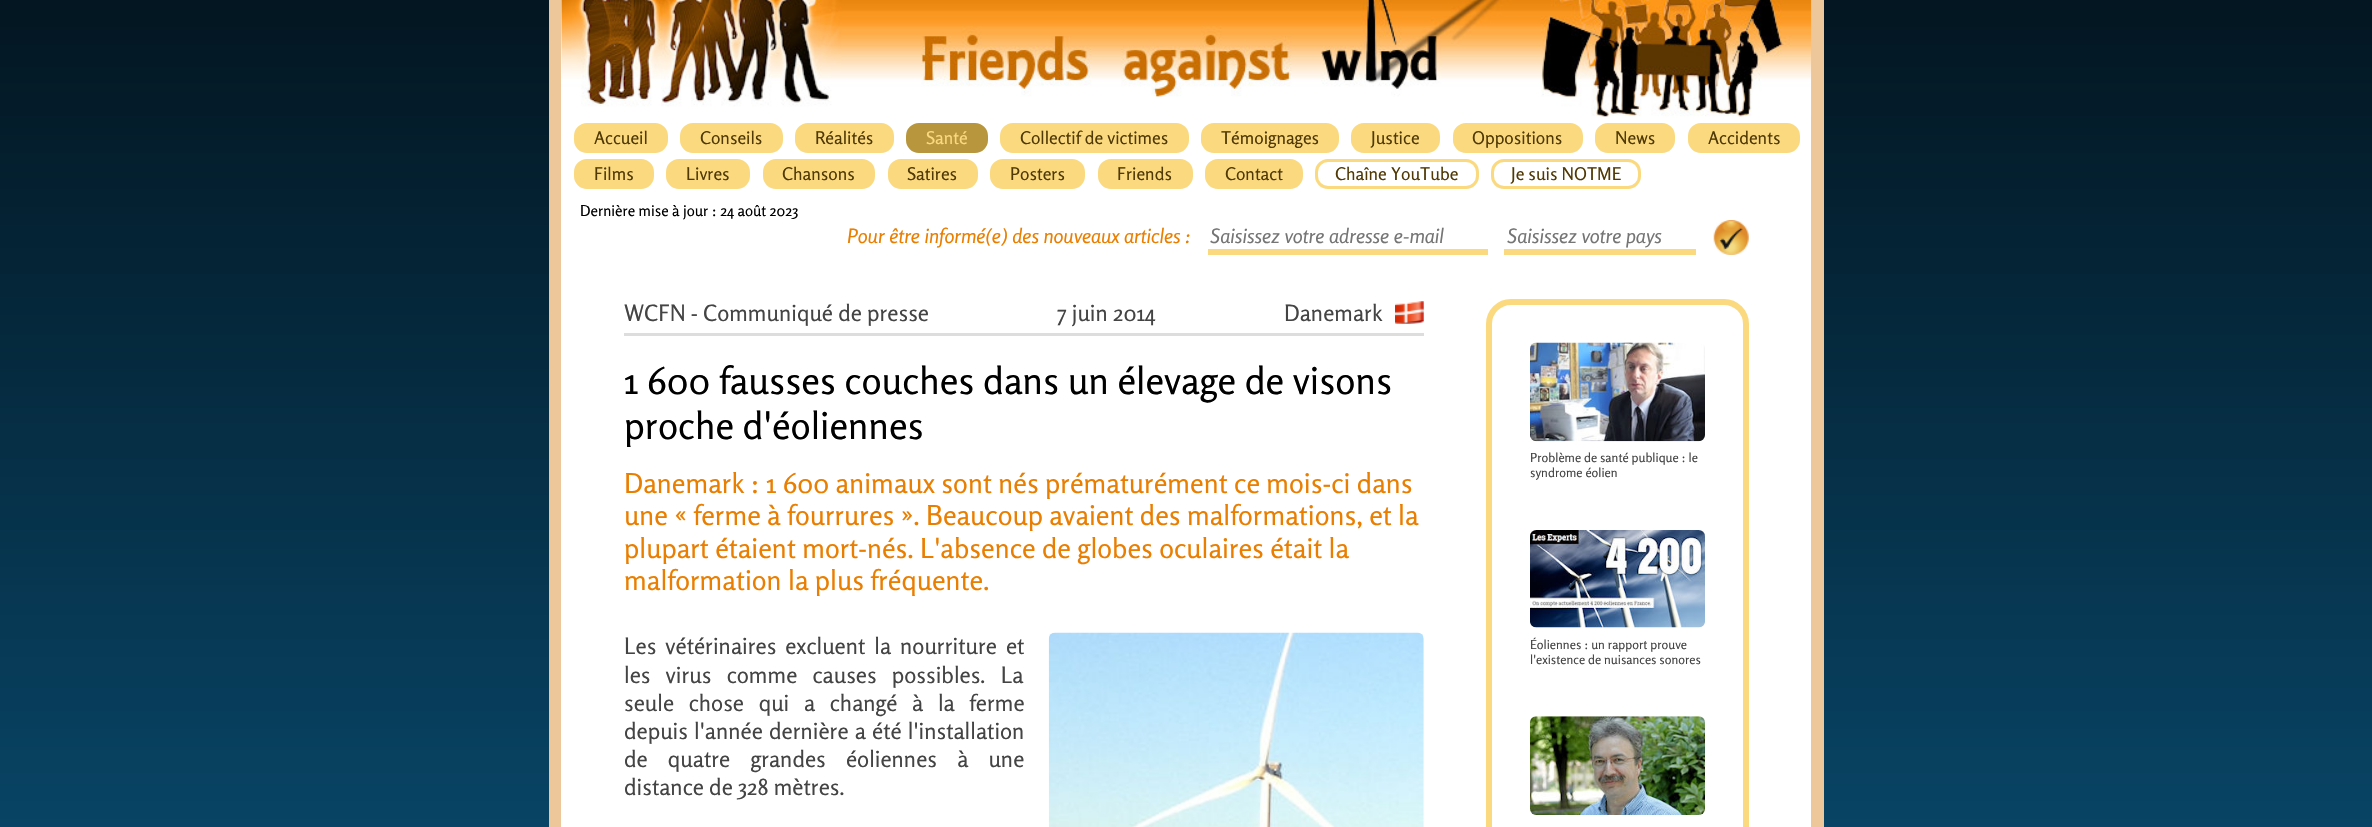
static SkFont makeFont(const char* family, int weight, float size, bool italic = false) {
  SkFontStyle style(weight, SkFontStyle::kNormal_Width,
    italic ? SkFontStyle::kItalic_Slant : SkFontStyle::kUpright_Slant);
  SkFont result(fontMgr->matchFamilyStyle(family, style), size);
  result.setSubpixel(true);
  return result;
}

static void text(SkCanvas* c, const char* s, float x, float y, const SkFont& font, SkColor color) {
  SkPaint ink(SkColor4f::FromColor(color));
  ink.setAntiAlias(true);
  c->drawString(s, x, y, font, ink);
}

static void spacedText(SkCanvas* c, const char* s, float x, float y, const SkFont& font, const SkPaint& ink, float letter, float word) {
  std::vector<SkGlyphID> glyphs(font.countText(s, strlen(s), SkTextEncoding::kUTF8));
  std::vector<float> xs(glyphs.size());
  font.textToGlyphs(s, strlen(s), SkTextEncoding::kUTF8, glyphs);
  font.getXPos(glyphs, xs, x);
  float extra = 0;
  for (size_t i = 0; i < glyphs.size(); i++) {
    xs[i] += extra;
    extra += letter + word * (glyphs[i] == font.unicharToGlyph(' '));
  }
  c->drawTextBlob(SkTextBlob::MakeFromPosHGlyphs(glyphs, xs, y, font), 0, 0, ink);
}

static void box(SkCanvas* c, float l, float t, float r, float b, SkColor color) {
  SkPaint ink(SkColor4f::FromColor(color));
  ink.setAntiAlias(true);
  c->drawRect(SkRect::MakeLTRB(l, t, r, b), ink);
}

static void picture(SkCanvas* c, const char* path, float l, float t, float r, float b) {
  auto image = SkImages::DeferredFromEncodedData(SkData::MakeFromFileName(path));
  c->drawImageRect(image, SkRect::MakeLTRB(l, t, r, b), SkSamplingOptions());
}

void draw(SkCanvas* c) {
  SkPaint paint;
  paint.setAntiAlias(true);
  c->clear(0xffffffff);
  {
    const SkColor colors[] = {0xff031621, 0xff084465};
    const float stops[] = {0, 1};
    const SkPoint ends[] = {{1186, 0}, {1186, 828}};
    paint.setShader(SkGradientShader::MakeLinear(ends, colors, stops, 2, SkTileMode::kClamp));
    paint.setAlpha(255);
  }
  c->drawRect(SkRect::MakeLTRB(0, 0, 2372, 827), paint);
  box(c, 549, 0, 1824, 827, 0xffedc699);
  box(c, 561, 0, 1811, 827, 0xffffffff);
  picture(c, "img_01.png", 561, 0, 1812, 117);
  paint.setShader(nullptr);
  paint.setColor(0xfffad97f);
  c->drawRoundRect(SkRect::MakeLTRB(575.5f, 124.5f, 666.5f, 151.5f), 11.5f, 11.5f, paint);
  paint.setStyle(SkPaint::kStroke_Style);
  paint.setStrokeWidth(3);
  c->drawRoundRect(SkRect::MakeLTRB(575.5f, 124.5f, 666.5f, 151.5f), 11.5f, 11.5f, paint);
  SkFont face1 = makeFont("Rosario", 400, 17.5f);
  text(c, "Accueil", 594, 144, face1, 0xff503904);
  paint.setStyle(SkPaint::kFill_Style);
  c->drawRoundRect(SkRect::MakeLTRB(681.5f, 124.5f, 781.5f, 151.5f), 11.5f, 11.5f, paint);
  paint.setStyle(SkPaint::kStroke_Style);
  c->drawRoundRect(SkRect::MakeLTRB(681.5f, 124.5f, 781.5f, 151.5f), 11.5f, 11.5f, paint);
  text(c, "Conseils", 700, 144, face1, 0xff503904);
  paint.setStyle(SkPaint::kFill_Style);
  c->drawRoundRect(SkRect::MakeLTRB(796.5f, 124.5f, 892.5f, 151.5f), 11.5f, 11.5f, paint);
  paint.setStyle(SkPaint::kStroke_Style);
  c->drawRoundRect(SkRect::MakeLTRB(796.5f, 124.5f, 892.5f, 151.5f), 11.5f, 11.5f, paint);
  text(c, "Réalités", 815, 144, face1, 0xff503904);
  paint.setStyle(SkPaint::kFill_Style);
  paint.setColor(0xffb8963d);
  c->drawRoundRect(SkRect::MakeLTRB(907.5f, 124.5f, 986.5f, 151.5f), 11.5f, 11.5f, paint);
  paint.setStyle(SkPaint::kStroke_Style);
  c->drawRoundRect(SkRect::MakeLTRB(907.5f, 124.5f, 986.5f, 151.5f), 11.5f, 11.5f, paint);
  text(c, "Santé", 926, 144, face1, 0xfffad97f);
  paint.setStyle(SkPaint::kFill_Style);
  paint.setColor(0xfffad97f);
  c->drawRoundRect(SkRect::MakeLTRB(1001.5f, 124.5f, 1187.5f, 151.5f), 11.5f, 11.5f, paint);
  paint.setStyle(SkPaint::kStroke_Style);
  c->drawRoundRect(SkRect::MakeLTRB(1001.5f, 124.5f, 1187.5f, 151.5f), 11.5f, 11.5f, paint);
  text(c, "Collectif de victimes", 1020, 144, face1, 0xff503904);
  paint.setStyle(SkPaint::kFill_Style);
  c->drawRoundRect(SkRect::MakeLTRB(1202.5f, 124.5f, 1337.5f, 151.5f), 11.5f, 11.5f, paint);
  paint.setStyle(SkPaint::kStroke_Style);
  c->drawRoundRect(SkRect::MakeLTRB(1202.5f, 124.5f, 1337.5f, 151.5f), 11.5f, 11.5f, paint);
  text(c, "Témoignages", 1221, 144, face1, 0xff503904);
  paint.setStyle(SkPaint::kFill_Style);
  c->drawRoundRect(SkRect::MakeLTRB(1352.5f, 124.5f, 1438.5f, 151.5f), 11.5f, 11.5f, paint);
  paint.setStyle(SkPaint::kStroke_Style);
  c->drawRoundRect(SkRect::MakeLTRB(1352.5f, 124.5f, 1438.5f, 151.5f), 11.5f, 11.5f, paint);
  text(c, "Justice", 1371, 144, face1, 0xff503904);
  paint.setStyle(SkPaint::kFill_Style);
  c->drawRoundRect(SkRect::MakeLTRB(1454.5f, 124.5f, 1581.5f, 151.5f), 11.5f, 11.5f, paint);
  paint.setStyle(SkPaint::kStroke_Style);
  c->drawRoundRect(SkRect::MakeLTRB(1454.5f, 124.5f, 1581.5f, 151.5f), 11.5f, 11.5f, paint);
  text(c, "Oppositions", 1472, 144, face1, 0xff503904);
  paint.setStyle(SkPaint::kFill_Style);
  c->drawRoundRect(SkRect::MakeLTRB(1596.5f, 124.5f, 1673.5f, 151.5f), 11.5f, 11.5f, paint);
  paint.setStyle(SkPaint::kStroke_Style);
  c->drawRoundRect(SkRect::MakeLTRB(1596.5f, 124.5f, 1673.5f, 151.5f), 11.5f, 11.5f, paint);
  text(c, "News", 1615, 144, face1, 0xff503904);
  paint.setStyle(SkPaint::kFill_Style);
  c->drawRoundRect(SkRect::MakeLTRB(1689.5f, 124.5f, 1798.5f, 151.5f), 11.5f, 11.5f, paint);
  paint.setStyle(SkPaint::kStroke_Style);
  c->drawRoundRect(SkRect::MakeLTRB(1689.5f, 124.5f, 1798.5f, 151.5f), 11.5f, 11.5f, paint);
  text(c, "Accidents", 1708, 144, face1, 0xff503904);
  paint.setStyle(SkPaint::kFill_Style);
  c->drawRoundRect(SkRect::MakeLTRB(575.5f, 160.5f, 652.5f, 187.5f), 11.5f, 11.5f, paint);
  paint.setStyle(SkPaint::kStroke_Style);
  c->drawRoundRect(SkRect::MakeLTRB(575.5f, 160.5f, 652.5f, 187.5f), 11.5f, 11.5f, paint);
  text(c, "Films", 594, 180, face1, 0xff503904);
  paint.setStyle(SkPaint::kFill_Style);
  c->drawRoundRect(SkRect::MakeLTRB(667.5f, 160.5f, 748.5f, 187.5f), 11.5f, 11.5f, paint);
  paint.setStyle(SkPaint::kStroke_Style);
  c->drawRoundRect(SkRect::MakeLTRB(667.5f, 160.5f, 748.5f, 187.5f), 11.5f, 11.5f, paint);
  text(c, "Livres", 686, 180, face1, 0xff503904);
  paint.setStyle(SkPaint::kFill_Style);
  c->drawRoundRect(SkRect::MakeLTRB(764.5f, 160.5f, 873.5f, 187.5f), 11.5f, 11.5f, paint);
  paint.setStyle(SkPaint::kStroke_Style);
  c->drawRoundRect(SkRect::MakeLTRB(764.5f, 160.5f, 873.5f, 187.5f), 11.5f, 11.5f, paint);
  text(c, "Chansons", 782, 180, face1, 0xff503904);
  paint.setStyle(SkPaint::kFill_Style);
  c->drawRoundRect(SkRect::MakeLTRB(889.5f, 160.5f, 976.5f, 187.5f), 11.5f, 11.5f, paint);
  paint.setStyle(SkPaint::kStroke_Style);
  c->drawRoundRect(SkRect::MakeLTRB(889.5f, 160.5f, 976.5f, 187.5f), 11.5f, 11.5f, paint);
  text(c, "Satires", 907, 180, face1, 0xff503904);
  paint.setStyle(SkPaint::kFill_Style);
  c->drawRoundRect(SkRect::MakeLTRB(991.5f, 160.5f, 1083.5f, 187.5f), 11.5f, 11.5f, paint);
  paint.setStyle(SkPaint::kStroke_Style);
  c->drawRoundRect(SkRect::MakeLTRB(991.5f, 160.5f, 1083.5f, 187.5f), 11.5f, 11.5f, paint);
  text(c, "Posters", 1010, 180, face1, 0xff503904);
  paint.setStyle(SkPaint::kFill_Style);
  c->drawRoundRect(SkRect::MakeLTRB(1099.5f, 160.5f, 1191.5f, 187.5f), 11.5f, 11.5f, paint);
  paint.setStyle(SkPaint::kStroke_Style);
  c->drawRoundRect(SkRect::MakeLTRB(1099.5f, 160.5f, 1191.5f, 187.5f), 11.5f, 11.5f, paint);
  text(c, "Friends", 1117, 180, face1, 0xff503904);
  paint.setStyle(SkPaint::kFill_Style);
  c->drawRoundRect(SkRect::MakeLTRB(1206.5f, 160.5f, 1301.5f, 187.5f), 11.5f, 11.5f, paint);
  paint.setStyle(SkPaint::kStroke_Style);
  c->drawRoundRect(SkRect::MakeLTRB(1206.5f, 160.5f, 1301.5f, 187.5f), 11.5f, 11.5f, paint);
  text(c, "Contact", 1225, 180, face1, 0xff503904);
  c->drawRoundRect(SkRect::MakeLTRB(1316.5f, 160.5f, 1477.5f, 187.5f), 11.5f, 11.5f, paint);
  text(c, "Chaîne YouTube", 1335, 180, face1, 0xff503904);
  c->drawRoundRect(SkRect::MakeLTRB(1492.5f, 160.5f, 1639.5f, 187.5f), 11.5f, 11.5f, paint);
  text(c, "Je suis NOTME", 1511, 180, face1, 0xff503904);
  SkFont face2 = makeFont("Rosario", 400, 15);
  text(c, "Dernière mise à jour : 24 août 2023", 580, 216, face2, 0xff000000);
  SkFont face3 = makeFont("Rosario", 400, 20, true);
  text(c, "Pour être informé(e) des nouveaux articles :", 847, 243, face3, 0xffea7e00);
  box(c, 1208, 249, 1488, 255, 0xfffad97f);
  text(c, "Saisissez votre adresse e-mail", 1210, 243, face3, 0xff757575);
  box(c, 1504, 249, 1696, 255, 0xfffad97f);
  text(c, "Saisissez votre pays", 1507, 243, face3, 0xff757575);
  picture(c, "img_02.png", 1713, 220, 1749, 255);
  box(c, 624, 333, 1424, 336, 0xffdddddd);
  SkFont face4 = makeFont("Rosario", 400, 22.5f);
  text(c, "WCFN - Communiqué de presse", 624, 321, face4, 0xff444444);
  text(c, "7 juin 2014", 1057, 321, face4, 0xff444444);
  text(c, "Danemark", 1284, 321, face4, 0xff444444);
  picture(c, "img_03.png", 1395, 301, 1424, 324);
  SkFont face5 = makeFont("Rosario", 400, 37.5f);
  text(c, "1 600 fausses couches dans un élevage de visons", 624, 394, face5, 0xff000000);
  text(c, "proche d'éoliennes", 624, 439, face5, 0xff000000);
  SkFont face6 = makeFont("Rosario", 400, 27.5f);
  text(c, "Danemark : 1 600 animaux sont nés prématurément ce mois-ci dans", 624, 493, face6, 0xffea7e00);
  text(c, "une « ferme à fourrures ». Beaucoup avaient des malformations, et la", 624, 525, face6, 0xffea7e00);
  text(c, "plupart étaient mort-nés. L'absence de globes oculaires était la", 624, 558, face6, 0xffea7e00);
  text(c, "malformation la plus fréquente.", 624, 590, face6, 0xffea7e00);
  paint.setStyle(SkPaint::kFill_Style);
  paint.setColor(0xff444444);
  spacedText(c, "Les vétérinaires excluent la nourriture et", 624, 654, face4, paint, 0, 3.75f);
  spacedText(c, "les virus comme causes possibles. La", 624, 683, face4, paint, 0, 10);
  spacedText(c, "seule chose qui a changé à la ferme", 624, 711, face4, paint, 0, 9.5f);
  spacedText(c, "depuis l'année dernière a été l'installation", 624, 739, face4, paint, 0, 1);
  spacedText(c, "de quatre grandes éoliennes à une", 624, 767, face4, paint, 0, 15);
  text(c, "distance de 328 mètres.", 624, 795, face4, 0xff444444);
  picture(c, "img_04.png", 1048, 632, 1424, 827);
  paint.setStyle(SkPaint::kStroke_Style);
  paint.setStrokeWidth(6);
  paint.setColor(0xfffad97f);
  c->drawRoundRect(SkRect::MakeLTRB(1489, 302, 1746, 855), 22, 22, paint);
  picture(c, "img_05.png", 1530, 342, 1705, 442);
  SkFont face7 = makeFont("Rosario", 400, 12.5f);
  text(c, "Problème de santé publique : le", 1530, 462, face7, 0xff444444);
  text(c, "syndrome éolien", 1530, 477, face7, 0xff444444);
  picture(c, "img_06.png", 1530, 530, 1705, 628);
  text(c, "Éoliennes : un rapport prouve", 1530, 649, face7, 0xff444444);
  text(c, "l'existence de nuisances sonores", 1530, 664, face7, 0xff444444);
  picture(c, "img_07.png", 1530, 716, 1705, 815);
}
